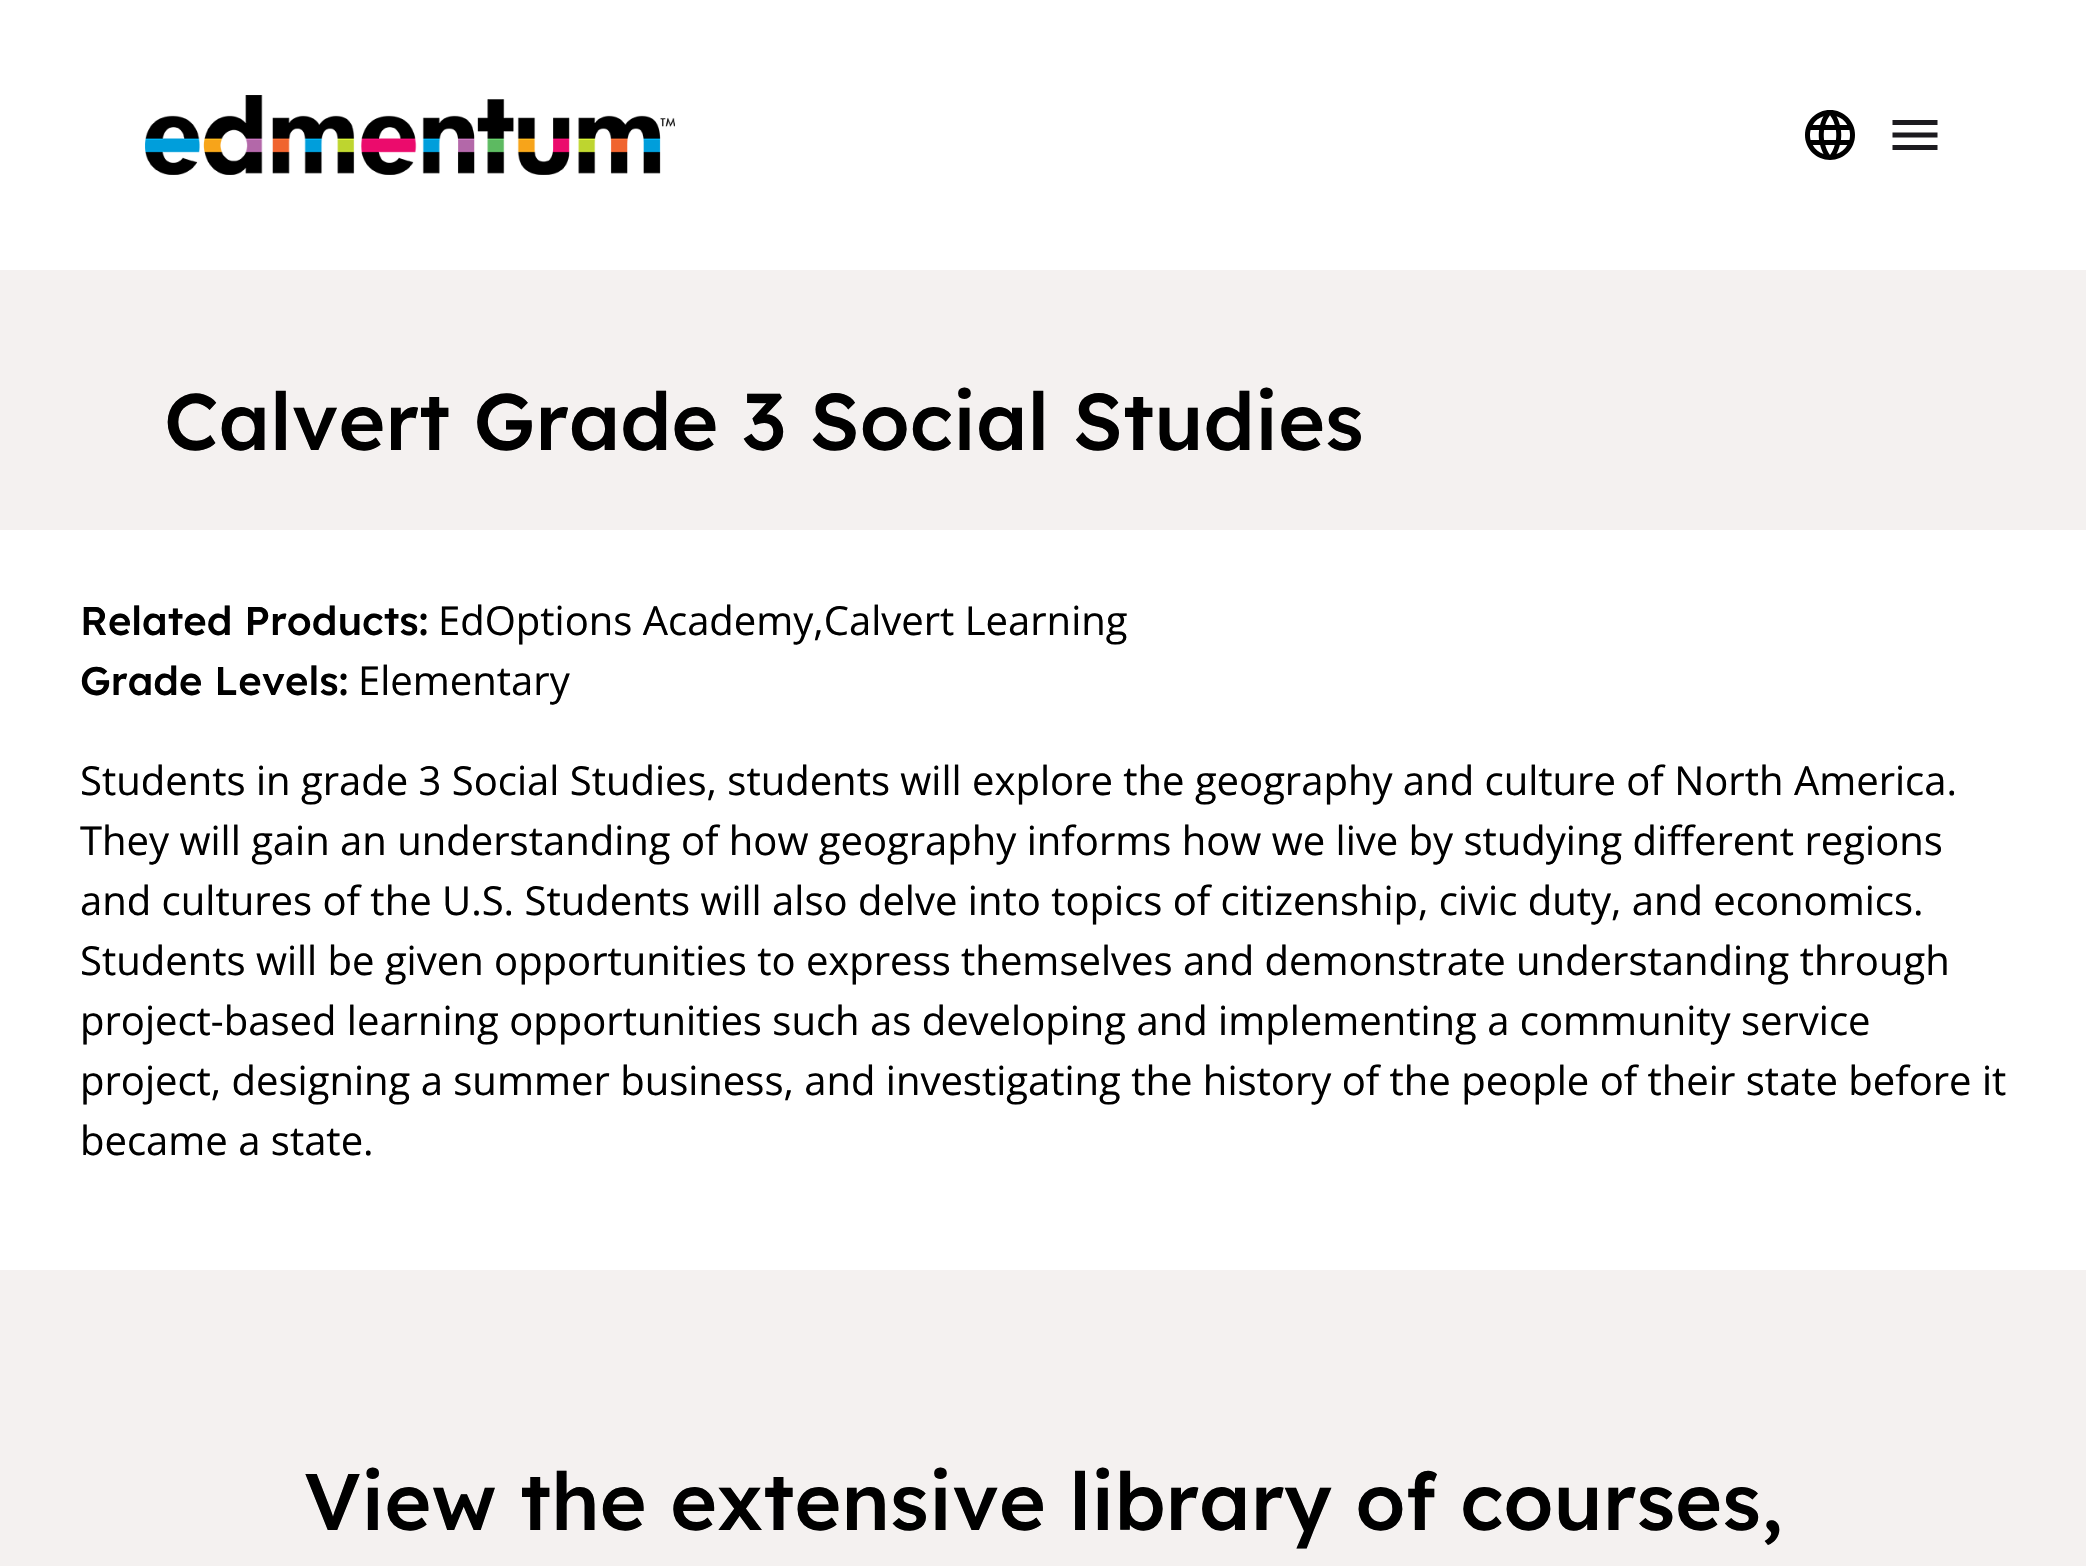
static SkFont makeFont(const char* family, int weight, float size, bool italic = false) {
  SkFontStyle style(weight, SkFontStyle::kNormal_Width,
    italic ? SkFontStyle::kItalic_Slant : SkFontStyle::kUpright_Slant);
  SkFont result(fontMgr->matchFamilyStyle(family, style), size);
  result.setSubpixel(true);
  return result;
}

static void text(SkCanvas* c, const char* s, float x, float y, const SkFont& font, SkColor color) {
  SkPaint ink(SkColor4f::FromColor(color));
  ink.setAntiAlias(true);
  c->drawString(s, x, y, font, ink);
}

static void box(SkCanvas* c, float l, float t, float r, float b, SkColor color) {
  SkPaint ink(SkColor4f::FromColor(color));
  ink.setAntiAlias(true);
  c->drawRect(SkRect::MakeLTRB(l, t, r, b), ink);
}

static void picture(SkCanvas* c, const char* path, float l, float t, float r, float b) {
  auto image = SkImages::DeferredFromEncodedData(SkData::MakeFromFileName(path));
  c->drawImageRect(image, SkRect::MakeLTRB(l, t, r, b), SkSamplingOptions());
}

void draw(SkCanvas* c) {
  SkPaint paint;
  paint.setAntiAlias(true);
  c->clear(0xffffffff);
  picture(c, "img_01.png", 145, 95, 675, 175);
  picture(c, "img_02.png", 1805, 110, 1855, 160);
  picture(c, "img_03.png", 1892, 120, 1938, 150);
  box(c, 0, 270, 2086, 530, 0xfff4f1f0);
  SkFont face1 = makeFont("Lexend", 500, 80);
  text(c, "Calvert Grade 3 Social Studies", 164, 450, face1, 0xff000000);
  SkFont face2 = makeFont("Lexend", 500, 40);
  text(c, "Related Products:", 80, 635, face2, 0xff000000);
  SkFont face3 = makeFont("Open Sans", 400, 40);
  text(c, "EdOptions Academy,Calvert Learning", 438, 635, face3, 0xff000000);
  text(c, "Grade Levels:", 80, 695, face2, 0xff000000);
  text(c, "Elementary", 358, 695, face3, 0xff000000);
  text(c, "Students in grade 3 Social Studies, students will explore the geography and culture of North America.", 80, 795, face3, 0xff000000);
  text(c, "They will gain an understanding of how geography informs how we live by studying different regions", 80, 855, face3, 0xff000000);
  text(c, "and cultures of the U.S. Students will also delve into topics of citizenship, civic duty, and economics.", 80, 915, face3, 0xff000000);
  text(c, "Students will be given opportunities to express themselves and demonstrate understanding through", 80, 975, face3, 0xff000000);
  text(c, "project-based learning opportunities such as developing and implementing a community service", 80, 1035, face3, 0xff000000);
  text(c, "project, designing a summer business, and investigating the history of the people of their state before it", 80, 1095, face3, 0xff000000);
  text(c, "became a state.", 80, 1155, face3, 0xff000000);
  box(c, 0, 1270, 2086, 1566, 0xfff4f1f0);
  text(c, "View the extensive library of courses,", 304, 1530, face1, 0xff000000);
}
